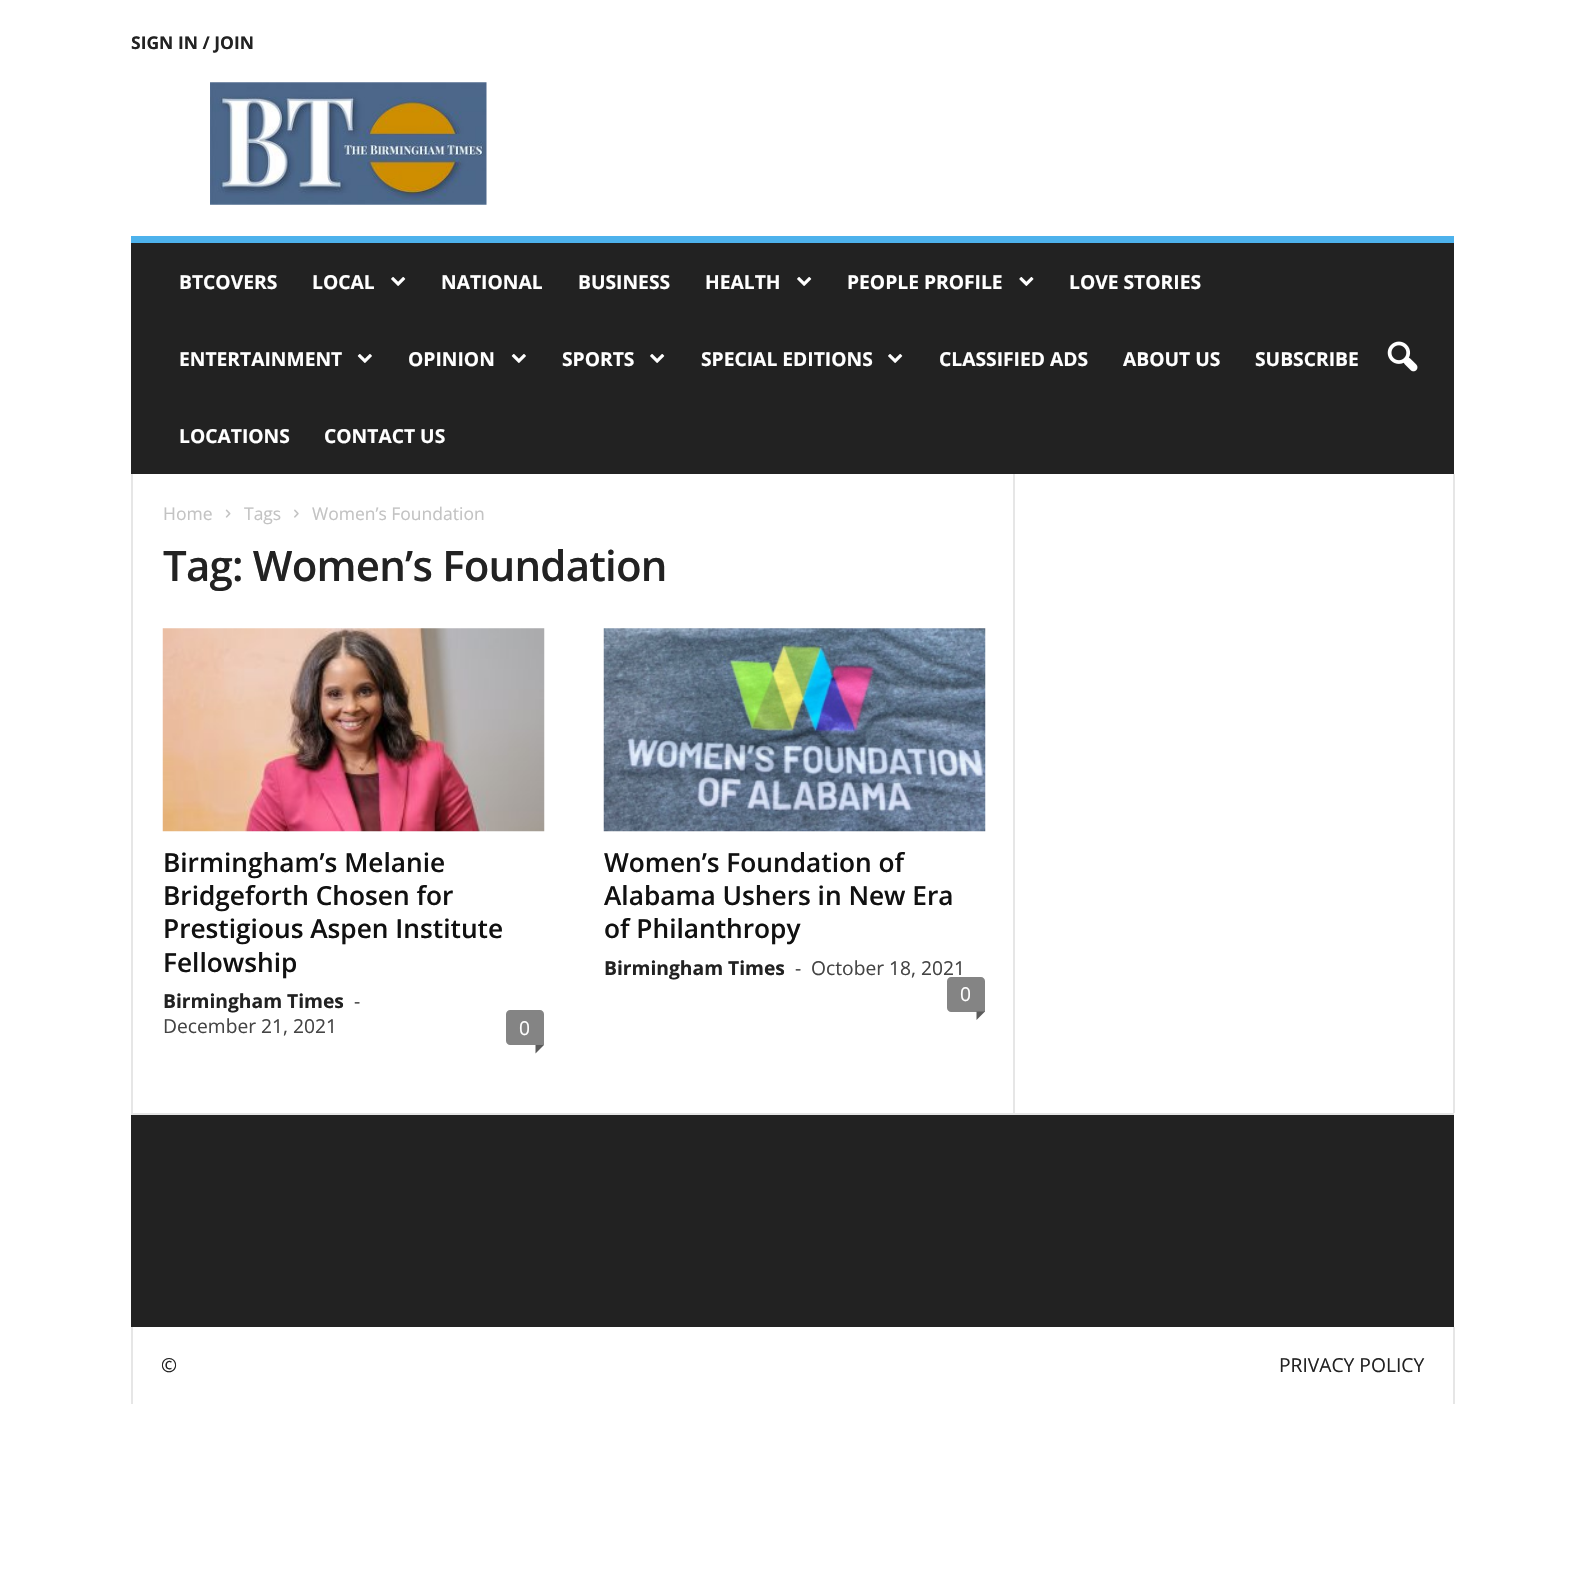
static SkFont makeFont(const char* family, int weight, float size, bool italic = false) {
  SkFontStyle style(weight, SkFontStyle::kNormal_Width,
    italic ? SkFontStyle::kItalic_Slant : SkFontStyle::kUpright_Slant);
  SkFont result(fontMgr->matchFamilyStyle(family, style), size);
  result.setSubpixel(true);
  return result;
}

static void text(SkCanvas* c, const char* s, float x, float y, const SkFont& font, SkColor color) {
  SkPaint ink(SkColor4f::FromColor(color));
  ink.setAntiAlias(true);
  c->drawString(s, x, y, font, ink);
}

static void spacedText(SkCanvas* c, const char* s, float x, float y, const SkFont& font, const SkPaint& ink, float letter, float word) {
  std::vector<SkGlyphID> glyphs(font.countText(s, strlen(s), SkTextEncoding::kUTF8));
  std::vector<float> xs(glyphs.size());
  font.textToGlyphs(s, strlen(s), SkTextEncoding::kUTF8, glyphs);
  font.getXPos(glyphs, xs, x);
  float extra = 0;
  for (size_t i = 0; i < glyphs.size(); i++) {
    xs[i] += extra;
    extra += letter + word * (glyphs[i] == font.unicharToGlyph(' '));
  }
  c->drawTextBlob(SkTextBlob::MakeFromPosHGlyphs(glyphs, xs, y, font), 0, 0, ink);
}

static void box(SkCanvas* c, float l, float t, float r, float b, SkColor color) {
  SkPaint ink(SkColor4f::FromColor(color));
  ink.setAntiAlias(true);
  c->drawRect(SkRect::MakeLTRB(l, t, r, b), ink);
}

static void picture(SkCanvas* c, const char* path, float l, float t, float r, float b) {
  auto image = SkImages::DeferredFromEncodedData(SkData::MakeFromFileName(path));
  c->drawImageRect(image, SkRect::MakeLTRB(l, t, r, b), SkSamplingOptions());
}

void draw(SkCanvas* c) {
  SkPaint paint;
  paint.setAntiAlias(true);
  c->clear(0xffffffff);
  SkFont face1 = makeFont("Open Sans", 700, 17.5f);
  text(c, "SIGN IN / JOIN", 131, 49, face1, 0xff222222);
  picture(c, "img_01.png", 210, 82, 487, 205);
  box(c, 131, 243, 1454, 474, 0xff222222);
  box(c, 131, 236, 1454, 243, 0xff4db2ec);
  SkFont face2 = makeFont("Open Sans", 700, 19.25f);
  text(c, "BTCOVERS", 179, 289, face2, 0xffffffff);
  text(c, "LOCAL", 312, 289, face2, 0xffffffff);
  picture(c, "img_02.png", 391, 277, 406, 286);
  text(c, "NATIONAL", 441, 289, face2, 0xffffffff);
  text(c, "BUSINESS", 578, 289, face2, 0xffffffff);
  text(c, "HEALTH", 705, 289, face2, 0xffffffff);
  picture(c, "img_02.png", 797, 277, 812, 286);
  text(c, "PEOPLE PROFILE", 847, 289, face2, 0xffffffff);
  picture(c, "img_03.png", 1019, 277, 1034, 286);
  text(c, "LOVE STORIES", 1069, 289, face2, 0xffffffff);
  text(c, "ENTERTAINMENT", 179, 366, face2, 0xffffffff);
  picture(c, "img_04.png", 357, 354, 372, 363);
  text(c, "OPINION", 408, 366, face2, 0xffffffff);
  picture(c, "img_04.png", 511, 354, 526, 363);
  text(c, "SPORTS", 562, 366, face2, 0xffffffff);
  picture(c, "img_02.png", 650, 354, 665, 363);
  text(c, "SPECIAL EDITIONS", 701, 366, face2, 0xffffffff);
  picture(c, "img_02.png", 888, 354, 903, 363);
  text(c, "CLASSIFIED ADS", 939, 366, face2, 0xffffffff);
  text(c, "ABOUT US", 1123, 366, face2, 0xffffffff);
  text(c, "SUBSCRIBE", 1255, 366, face2, 0xffffffff);
  text(c, "LOCATIONS", 179, 443, face2, 0xffffffff);
  text(c, "CONTACT US", 324, 443, face2, 0xffffffff);
  picture(c, "img_05.png", 1387, 341, 1418, 372);
  box(c, 131, 1113, 1454, 1115, 0xffe6e6e6);
  box(c, 131, 474, 133, 1113, 0xffe6e6e6);
  SkFont face3 = makeFont("Open Sans", 400, 17.5f);
  text(c, "Home", 163, 520, face3, 0xffc3c3c3);
  picture(c, "img_06.png", 225, 509, 231, 518);
  text(c, "Tags", 244, 520, face3, 0xffc3c3c3);
  picture(c, "img_07.png", 294, 509, 299, 518);
  text(c, "Women’s Foundation", 312, 520, face3, 0xffc3c3c3);
  SkFont face4 = makeFont("Open Sans", 600, 42);
  paint.setColor(0xff222222);
  spacedText(c, "Tag: Women’s Foundation", 163, 581, face4, paint, -0.8f, 0);
  picture(c, "img_08.png", 162, 628, 545, 832);
  SkFont face5 = makeFont("Open Sans", 600, 26.25f);
  text(c, "Birmingham’s Melanie", 163, 872, face5, 0xff111111);
  text(c, "Bridgeforth Chosen for", 163, 905, face5, 0xff111111);
  text(c, "Prestigious Aspen Institute", 163, 938, face5, 0xff111111);
  text(c, "Fellowship", 163, 972, face5, 0xff111111);
  text(c, "Birmingham Times", 163, 1008, face2, 0xff222222);
  SkFont face6 = makeFont("Open Sans", 400, 19.25f);
  text(c, "-", 354, 1008, face6, 0xff444444);
  text(c, "December 21, 2021", 163, 1033, face6, 0xff444444);
  paint.setColor(0xff848484);
  c->drawPath(SkPathBuilder().moveTo(510, 1010).lineTo(540, 1010).cubicTo(542, 1010, 544, 1012, 544, 1014).lineTo(544, 1045).lineTo(510, 1045).cubicTo(508, 1045, 506, 1043, 506, 1041).lineTo(506, 1014).cubicTo(506, 1012, 508, 1010, 510, 1010).close().detach(), paint);
  text(c, "0", 519, 1035, face6, 0xffffffff);
  paint.setColor(0xff5b5b5b);
  c->drawPath(SkPathBuilder().moveTo(535.5f, 1045).lineTo(544, 1045).lineTo(535.5f, 1053.5f).close().detach(), paint);
  picture(c, "img_09.png", 603, 628, 986, 832);
  text(c, "Women’s Foundation of", 604, 872, face5, 0xff111111);
  text(c, "Alabama Ushers in New Era", 604, 905, face5, 0xff111111);
  text(c, "of Philanthropy", 604, 938, face5, 0xff111111);
  text(c, "Birmingham Times", 604, 975, face2, 0xff222222);
  text(c, "-", 795, 975, face6, 0xff444444);
  text(c, "October 18, 2021", 811, 975, face6, 0xff444444);
  paint.setColor(0xff848484);
  c->drawPath(SkPathBuilder().moveTo(951, 977).lineTo(981, 977).cubicTo(983, 977, 985, 979, 985, 981).lineTo(985, 1012).lineTo(951, 1012).cubicTo(949, 1012, 947, 1010, 947, 1008).lineTo(947, 981).cubicTo(947, 979, 949, 977, 951, 977).close().detach(), paint);
  text(c, "0", 960, 1001, face6, 0xffffffff);
  paint.setColor(0xff5b5b5b);
  c->drawPath(SkPathBuilder().moveTo(976.5f, 1011.5f).lineTo(985, 1011.5f).lineTo(976.5f, 1020).close().detach(), paint);
  box(c, 1013, 474, 1015, 1113, 0xffe6e6e6);
  box(c, 1453, 474, 1455, 1113, 0xffe6e6e6);
  box(c, 131, 1115, 1454, 1327, 0xff222222);
  box(c, 131, 1327, 133, 1404, 0xffe6e6e6);
  text(c, "©", 161, 1372, face6, 0xff222222);
  text(c, "PRIVACY POLICY", 1279, 1372, face6, 0xff222222);
  box(c, 1453, 1327, 1455, 1404, 0xffe6e6e6);
}
